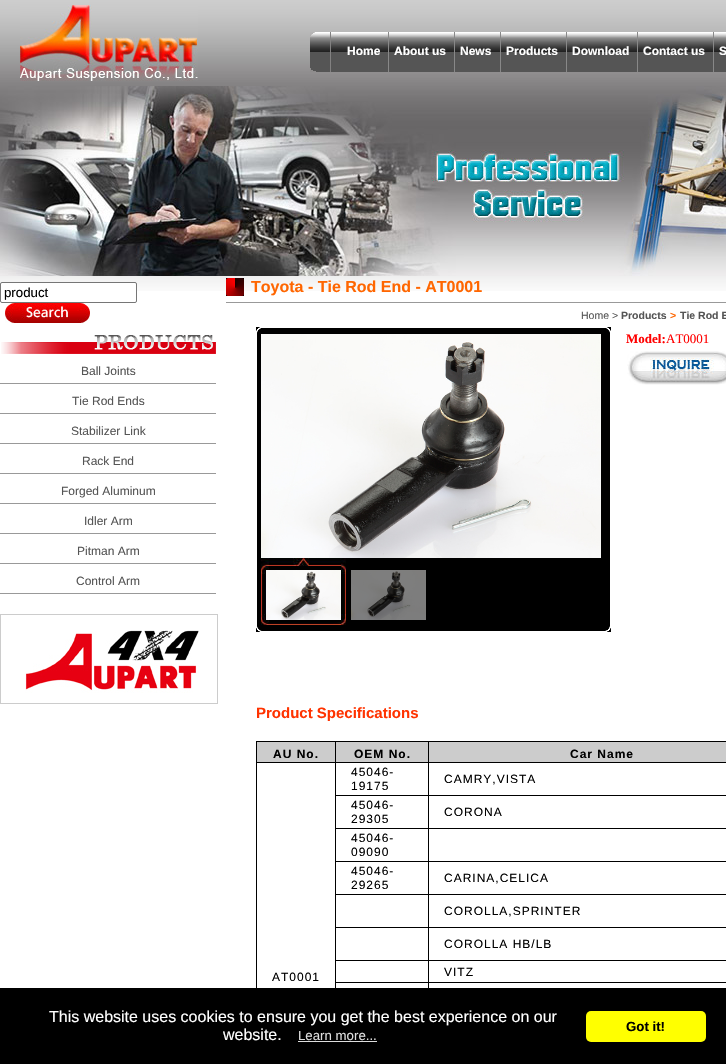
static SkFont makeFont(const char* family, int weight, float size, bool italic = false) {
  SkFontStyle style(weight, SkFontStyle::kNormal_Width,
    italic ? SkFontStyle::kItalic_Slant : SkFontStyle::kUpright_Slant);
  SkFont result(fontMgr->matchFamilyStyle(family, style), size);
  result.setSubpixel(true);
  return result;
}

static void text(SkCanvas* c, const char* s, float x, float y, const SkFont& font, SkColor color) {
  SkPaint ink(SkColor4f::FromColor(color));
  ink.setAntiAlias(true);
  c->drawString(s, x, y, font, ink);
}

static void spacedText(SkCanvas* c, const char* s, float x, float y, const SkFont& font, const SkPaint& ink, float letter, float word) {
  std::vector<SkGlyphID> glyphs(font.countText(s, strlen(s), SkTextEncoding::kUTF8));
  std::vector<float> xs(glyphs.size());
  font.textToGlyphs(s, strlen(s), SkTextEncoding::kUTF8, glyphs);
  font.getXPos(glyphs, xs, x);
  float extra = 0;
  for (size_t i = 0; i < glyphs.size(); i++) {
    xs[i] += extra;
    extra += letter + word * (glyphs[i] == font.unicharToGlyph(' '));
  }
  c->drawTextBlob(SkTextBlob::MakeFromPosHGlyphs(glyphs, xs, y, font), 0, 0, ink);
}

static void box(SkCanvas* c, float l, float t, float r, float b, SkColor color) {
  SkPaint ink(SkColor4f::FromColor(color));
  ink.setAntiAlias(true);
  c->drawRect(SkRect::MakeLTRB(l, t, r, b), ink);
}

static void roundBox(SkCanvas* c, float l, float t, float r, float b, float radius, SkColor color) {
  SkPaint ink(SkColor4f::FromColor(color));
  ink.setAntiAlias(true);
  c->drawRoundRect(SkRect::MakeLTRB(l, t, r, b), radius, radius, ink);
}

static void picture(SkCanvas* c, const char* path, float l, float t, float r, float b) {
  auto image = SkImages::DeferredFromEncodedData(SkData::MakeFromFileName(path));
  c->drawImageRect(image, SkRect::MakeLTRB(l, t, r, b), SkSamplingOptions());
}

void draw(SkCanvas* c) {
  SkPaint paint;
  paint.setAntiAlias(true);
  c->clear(0xffffffff);
  picture(c, "img_01.png", 0, 0, 726, 291);
  picture(c, "img_02.png", 20, 5, 198, 81);
  picture(c, "img_03.png", 310, 32, 726, 72);
  box(c, 388, 32, 389, 72, 0xff888888);
  SkFont face1 = makeFont("Liberation Sans", 700, 12);
  text(c, "Home", 347, 55, face1, 0xffffffff);
  box(c, 454, 32, 455, 72, 0xff888888);
  text(c, "About us", 394, 55, face1, 0xffffffff);
  box(c, 500, 32, 501, 72, 0xff888888);
  text(c, "News", 460, 55, face1, 0xffffffff);
  box(c, 566, 32, 567, 72, 0xff888888);
  text(c, "Products", 506, 55, face1, 0xffffffff);
  box(c, 637, 32, 638, 72, 0xff888888);
  text(c, "Download", 572, 55, face1, 0xffffffff);
  box(c, 713, 32, 714, 72, 0xff888888);
  text(c, "Contact us", 643, 55, face1, 0xffffffff);
  text(c, "S", 719, 55, face1, 0xffffffff);
  picture(c, "img_04.png", 0, 86, 726, 276);
  paint.setColor(0xffffffff);
  c->drawRoundRect(SkRect::MakeLTRB(0.5f, 282.5f, 136.5f, 302.5f), 1.5f, 1.5f, paint);
  paint.setStyle(SkPaint::kStroke_Style);
  paint.setStrokeWidth(1);
  paint.setColor(0xff767676);
  c->drawRoundRect(SkRect::MakeLTRB(0.5f, 282.5f, 136.5f, 302.5f), 1.5f, 1.5f, paint);
  SkFont face2 = makeFont("Liberation Sans", 400, 13.25f);
  text(c, "product", 4, 297, face2, 0xff000000);
  picture(c, "img_05.png", 5, 303, 90, 323);
  picture(c, "img_06.png", 1, 335, 216, 354);
  box(c, 0, 383, 216, 384, 0xff999999);
  SkFont face3 = makeFont("Liberation Sans", 400, 12);
  text(c, "Ball Joints", 81, 375, face3, 0xff555555);
  box(c, 0, 413, 216, 414, 0xff999999);
  text(c, "Tie Rod Ends", 72, 405, face3, 0xff555555);
  box(c, 0, 443, 216, 444, 0xff999999);
  text(c, "Stabilizer Link", 71, 435, face3, 0xff555555);
  box(c, 0, 473, 216, 474, 0xff999999);
  text(c, "Rack End", 82, 465, face3, 0xff555555);
  box(c, 0, 503, 216, 504, 0xff999999);
  text(c, "Forged Aluminum", 61, 495, face3, 0xff555555);
  box(c, 0, 533, 216, 534, 0xff999999);
  text(c, "Idler Arm", 84, 525, face3, 0xff555555);
  box(c, 0, 563, 216, 564, 0xff999999);
  text(c, "Pitman Arm", 77, 555, face3, 0xff555555);
  box(c, 0, 593, 216, 594, 0xff999999);
  text(c, "Control Arm", 76, 585, face3, 0xff555555);
  paint.setColor(0xffcccccc);
  c->drawRect(SkRect::MakeLTRB(0.5f, 614.5f, 217.5f, 703.5f), paint);
  picture(c, "img_07.png", 25, 630, 199, 693);
  picture(c, "img_08.png", 226, 278, 244, 296);
  box(c, 226, 302, 726, 303, 0xff999999);
  SkFont face4 = makeFont("Liberation Sans", 700, 16);
  text(c, "Toyota - Tie Rod End - AT0001", 251, 292, face4, 0xffff6600);
  SkFont face5 = makeFont("Liberation Sans", 400, 10.5f);
  text(c, "Home >", 581, 319, face5, 0xff555555);
  SkFont face6 = makeFont("Liberation Sans", 700, 10.5f);
  text(c, "Products", 621, 319, face6, 0xff555555);
  text(c, ">", 670, 319, face6, 0xffff6600);
  text(c, "Tie Rod E", 680, 319, face6, 0xff555555);
  picture(c, "img_09.png", 256, 327, 611, 632);
  picture(c, "img_10.png", 261, 334, 601, 558);
  picture(c, "img_11.png", 261, 558, 346, 625);
  picture(c, "img_12.png", 266, 570, 341, 620);
  picture(c, "img_13.png", 351, 570, 426, 620);
  SkFont face7 = makeFont("Liberation Serif", 700, 13);
  text(c, "Model:", 626, 343, face7, 0xffff0000);
  SkFont face8 = makeFont("Liberation Serif", 400, 13);
  text(c, "AT0001", 666, 343, face8, 0xffff0000);
  picture(c, "img_14.png", 627, 351, 726, 385);
  SkFont face9 = makeFont("Liberation Sans", 700, 15);
  text(c, "Product Specifications", 256, 718, face9, 0xffff3300);
  box(c, 256, 741, 726, 742, 0xff000000);
  box(c, 256, 741, 257, 988, 0xff000000);
  box(c, 257, 742, 335, 762, 0xffcccccc);
  box(c, 428, 982, 429, 988, 0xff000000);
  box(c, 428, 982, 726, 983, 0xff000000);
  box(c, 428, 960, 429, 983, 0xff000000);
  box(c, 428, 960, 726, 961, 0xff000000);
  box(c, 428, 927, 429, 961, 0xff000000);
  box(c, 428, 927, 726, 928, 0xff000000);
  box(c, 428, 894, 429, 928, 0xff000000);
  box(c, 428, 894, 726, 895, 0xff000000);
  box(c, 428, 861, 429, 895, 0xff000000);
  box(c, 428, 861, 726, 862, 0xff000000);
  box(c, 428, 828, 429, 862, 0xff000000);
  box(c, 428, 828, 726, 829, 0xff000000);
  box(c, 428, 795, 429, 829, 0xff000000);
  box(c, 428, 795, 726, 796, 0xff000000);
  box(c, 428, 762, 429, 796, 0xff000000);
  box(c, 428, 762, 726, 763, 0xff000000);
  box(c, 428, 741, 429, 763, 0xff000000);
  box(c, 335, 795, 429, 796, 0xff000000);
  box(c, 335, 828, 429, 829, 0xff000000);
  box(c, 335, 861, 429, 862, 0xff000000);
  box(c, 335, 894, 429, 895, 0xff000000);
  box(c, 335, 927, 429, 928, 0xff000000);
  box(c, 335, 960, 429, 961, 0xff000000);
  box(c, 335, 982, 429, 983, 0xff000000);
  box(c, 335, 762, 336, 988, 0xff000000);
  box(c, 335, 762, 429, 763, 0xff000000);
  box(c, 335, 741, 336, 763, 0xff000000);
  box(c, 256, 762, 336, 763, 0xff000000);
  paint.setStyle(SkPaint::kFill_Style);
  paint.setColor(0xff000000);
  spacedText(c, "AU No.", 273, 758, face1, paint, 1, 0);
  box(c, 336, 742, 428, 762, 0xffcccccc);
  spacedText(c, "OEM No.", 354, 758, face1, paint, 1, 0);
  box(c, 429, 742, 726, 762, 0xffcccccc);
  spacedText(c, "Car Name", 570, 758, face1, paint, 1, 0);
  spacedText(c, "45046-", 351, 776, face3, paint, 1, 0);
  spacedText(c, "19175", 351, 790, face3, paint, 1, 0);
  spacedText(c, "CAMRY,VISTA", 444, 783, face3, paint, 1, 0);
  spacedText(c, "AT0001", 272, 981, face3, paint, 1, 0);
  spacedText(c, "45046-", 351, 809, face3, paint, 1, 0);
  spacedText(c, "29305", 351, 823, face3, paint, 1, 0);
  spacedText(c, "CORONA", 444, 816, face3, paint, 1, 0);
  spacedText(c, "45046-", 351, 842, face3, paint, 1, 0);
  spacedText(c, "09090", 351, 856, face3, paint, 1, 0);
  spacedText(c, "45046-", 351, 875, face3, paint, 1, 0);
  spacedText(c, "29265", 351, 889, face3, paint, 1, 0);
  spacedText(c, "CARINA,CELICA", 444, 882, face3, paint, 1, 0);
  spacedText(c, "COROLLA,SPRINTER", 444, 915, face3, paint, 1, 0);
  spacedText(c, "COROLLA HB/LB", 444, 948, face3, paint, 1, 0);
  spacedText(c, "VITZ", 444, 976, face3, paint, 1, 0);
  box(c, 0, 988, 726, 1064, 0xff000000);
  SkFont face10 = makeFont("Liberation Sans", 400, 16);
  text(c, "This website uses cookies to ensure you get the best experience on our", 49, 1022, face10, 0xffffffff);
  text(c, "website.", 223, 1040, face10, 0xffffffff);
  text(c, "Learn more...", 298, 1040, face2, 0xffdddddd);
  box(c, 298, 1041, 377, 1042, 0xffdddddd);
  roundBox(c, 586, 1011, 706, 1042, 5, 0xffffff00);
  SkFont face11 = makeFont("Liberation Sans", 700, 13.25f);
  text(c, "Got it!", 626, 1031, face11, 0xff000000);
}
